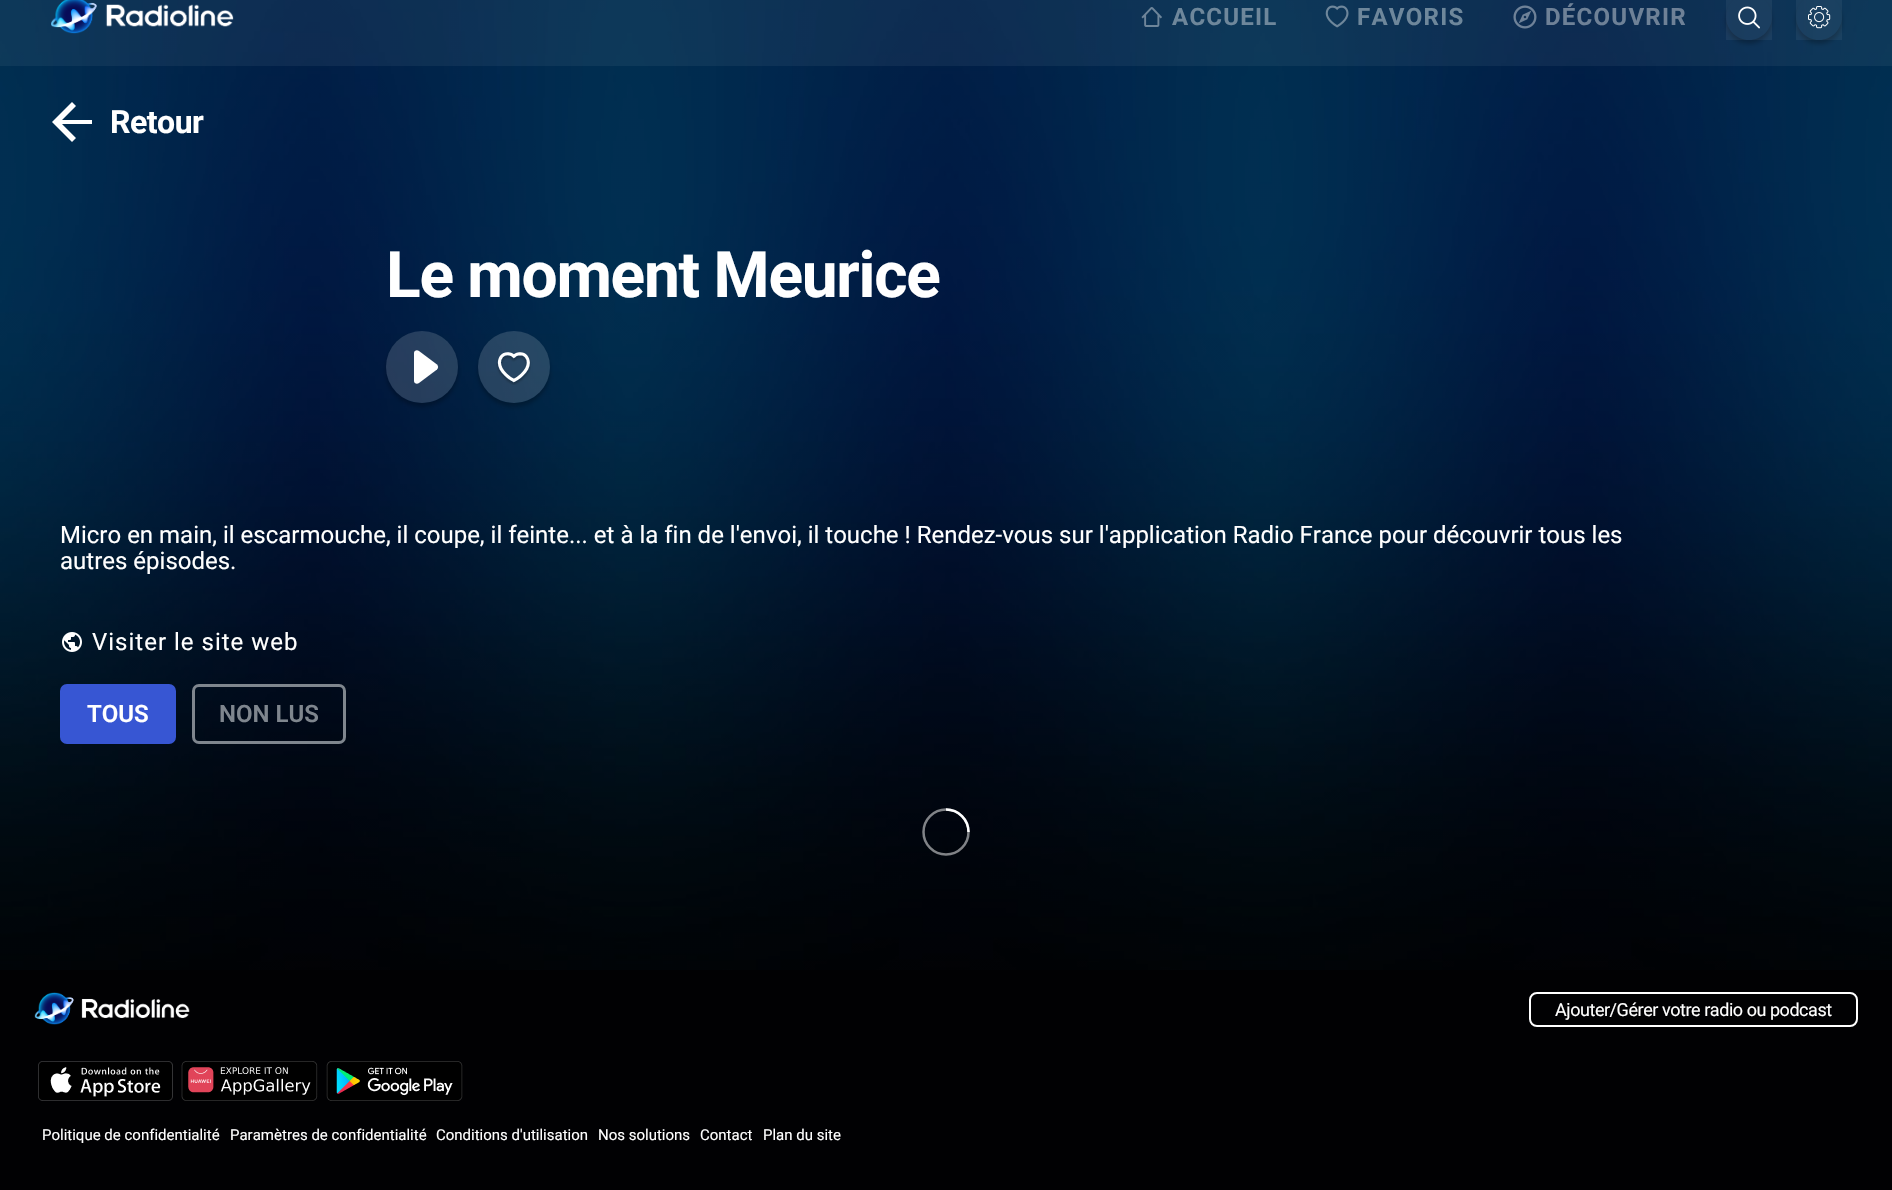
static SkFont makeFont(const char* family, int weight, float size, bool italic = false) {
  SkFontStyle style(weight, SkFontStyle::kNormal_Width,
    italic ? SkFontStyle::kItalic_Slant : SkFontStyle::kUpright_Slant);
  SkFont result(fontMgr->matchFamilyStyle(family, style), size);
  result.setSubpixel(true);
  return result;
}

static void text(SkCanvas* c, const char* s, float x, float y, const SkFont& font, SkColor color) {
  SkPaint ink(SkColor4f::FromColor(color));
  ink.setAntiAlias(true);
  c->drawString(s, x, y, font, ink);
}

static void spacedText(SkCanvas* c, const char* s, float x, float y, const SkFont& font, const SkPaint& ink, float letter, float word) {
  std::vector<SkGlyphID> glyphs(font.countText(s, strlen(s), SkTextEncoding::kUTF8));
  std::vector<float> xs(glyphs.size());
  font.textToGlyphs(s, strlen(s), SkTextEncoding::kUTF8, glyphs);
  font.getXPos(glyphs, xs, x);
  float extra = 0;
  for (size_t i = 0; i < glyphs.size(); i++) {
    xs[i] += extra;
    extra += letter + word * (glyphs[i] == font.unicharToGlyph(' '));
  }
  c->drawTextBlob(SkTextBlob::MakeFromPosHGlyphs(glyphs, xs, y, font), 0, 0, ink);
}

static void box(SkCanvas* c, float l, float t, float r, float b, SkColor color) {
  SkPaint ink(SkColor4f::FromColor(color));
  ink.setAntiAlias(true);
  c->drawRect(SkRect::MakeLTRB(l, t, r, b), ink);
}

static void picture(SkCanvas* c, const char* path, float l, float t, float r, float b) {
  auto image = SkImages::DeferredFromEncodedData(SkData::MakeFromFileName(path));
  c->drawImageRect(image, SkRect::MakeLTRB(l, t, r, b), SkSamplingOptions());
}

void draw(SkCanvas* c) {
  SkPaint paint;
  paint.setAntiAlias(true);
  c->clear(0xff010103);
  picture(c, "img_01.png", 0, 0, 1892, 970);
  box(c, 0, 0, 1892, 66, 0x0dffffff);
  picture(c, "img_02.png", 51, 0, 234, 34);
  picture(c, "img_03.png", 1141, 7, 1162, 27);
  SkFont face1 = makeFont("Roboto", 700, 24);
  paint.setColor(0xff6e879b);
  spacedText(c, "ACCUEIL", 1172, 25, face1, paint, 1.25f, 0);
  picture(c, "img_04.png", 1325, 5, 1349, 28);
  spacedText(c, "FAVORIS", 1357, 25, face1, paint, 1.25f, 0);
  picture(c, "img_05.png", 1513, 5, 1537, 29);
  paint.setColor(0xff6e8197);
  spacedText(c, "DÉCOUVRIR", 1545, 25, face1, paint, 1.25f, 0);
  c->save();
  c->clipPath(SkPathBuilder(SkPathFillType::kEvenOdd).moveTo(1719, 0).lineTo(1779, 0).lineTo(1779, 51).lineTo(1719, 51).close().moveTo(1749, -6).cubicTo(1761.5f, -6, 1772, 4.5f, 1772, 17).cubicTo(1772, 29.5f, 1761.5f, 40, 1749, 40).cubicTo(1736.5f, 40, 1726, 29.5f, 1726, 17).cubicTo(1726, 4.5f, 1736.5f, -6, 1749, -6).close().detach(), true);
  paint.setColor(0x40000000);
  paint.setMaskFilter(SkMaskFilter::MakeBlur(kNormal_SkBlurStyle, 2));
  c->drawRoundRect(SkRect::MakeLTRB(1726, -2, 1772, 44), 23, 23, paint);
  paint.setMaskFilter(nullptr);
  c->restore();
  box(c, 1726, 0, 1772, 40, 0x0dffffff);
  picture(c, "img_06.png", 1738, 6, 1760, 29);
  c->save();
  c->clipPath(SkPathBuilder(SkPathFillType::kEvenOdd).moveTo(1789, 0).lineTo(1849, 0).lineTo(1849, 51).lineTo(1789, 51).close().moveTo(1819, -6).cubicTo(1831.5f, -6, 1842, 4.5f, 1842, 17).cubicTo(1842, 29.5f, 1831.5f, 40, 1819, 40).cubicTo(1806.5f, 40, 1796, 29.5f, 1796, 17).cubicTo(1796, 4.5f, 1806.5f, -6, 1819, -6).close().detach(), true);
  paint.setMaskFilter(SkMaskFilter::MakeBlur(kNormal_SkBlurStyle, 2));
  c->drawRoundRect(SkRect::MakeLTRB(1796, -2, 1842, 44), 23, 23, paint);
  paint.setMaskFilter(nullptr);
  c->restore();
  box(c, 1796, 0, 1842, 40, 0x0dffffff);
  picture(c, "img_07.png", 1808, 6, 1831, 29);
  paint.setColor(0xffffffff);
  c->drawPath(SkPathBuilder().moveTo(92, 120).lineTo(62, 120).lineTo(76, 106).lineTo(72, 102).lineTo(52, 122).lineTo(72, 142).lineTo(76, 138).lineTo(62, 124).lineTo(92, 124).close().detach(), paint);
  SkFont face2 = makeFont("Roboto", 700, 32);
  spacedText(c, "Retour", 110, 133, face2, paint, -0.5f, 0);
  SkFont face3 = makeFont("Roboto", 700, 64);
  spacedText(c, "Le moment Meurice", 386, 297, face3, paint, -1.25f, 0);
  c->save();
  c->clipPath(SkPathBuilder(SkPathFillType::kEvenOdd).moveTo(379, 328).lineTo(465, 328).lineTo(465, 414).lineTo(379, 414).close().moveTo(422, 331).cubicTo(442, 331, 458, 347, 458, 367).cubicTo(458, 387, 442, 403, 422, 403).cubicTo(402, 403, 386, 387, 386, 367).cubicTo(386, 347, 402, 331, 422, 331).close().detach(), true);
  paint.setColor(0x40000000);
  paint.setMaskFilter(SkMaskFilter::MakeBlur(kNormal_SkBlurStyle, 2));
  c->drawRoundRect(SkRect::MakeLTRB(386, 335, 458, 407), 36, 36, paint);
  paint.setMaskFilter(nullptr);
  c->restore();
  paint.setColor(0x26ffffff);
  c->drawCircle(422, 367, 36, paint);
  paint.setColor(0xffffffff);
  c->drawPath(SkPathBuilder().moveTo(437, 364.5f).lineTo(419, 351).cubicTo(417, 349.5f, 414, 350.5f, 414, 353).lineTo(414, 381).cubicTo(414, 383.5f, 417, 384.5f, 419, 383).lineTo(437, 369.5f).cubicTo(438.5f, 368, 438.5f, 366, 437, 364.5f).close().detach(), paint);
  c->save();
  c->clipPath(SkPathBuilder(SkPathFillType::kEvenOdd).moveTo(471, 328).lineTo(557, 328).lineTo(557, 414).lineTo(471, 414).close().moveTo(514, 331).cubicTo(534, 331, 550, 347, 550, 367).cubicTo(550, 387, 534, 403, 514, 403).cubicTo(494, 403, 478, 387, 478, 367).cubicTo(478, 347, 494, 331, 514, 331).close().detach(), true);
  paint.setColor(0x40000000);
  paint.setMaskFilter(SkMaskFilter::MakeBlur(kNormal_SkBlurStyle, 2));
  c->drawRoundRect(SkRect::MakeLTRB(478, 335, 550, 407), 36, 36, paint);
  paint.setMaskFilter(nullptr);
  c->restore();
  paint.setColor(0x26ffffff);
  c->drawCircle(514, 367, 36, paint);
  picture(c, "img_08.png", 496, 352, 531, 385);
  SkFont face4 = makeFont("Roboto", 400, 24);
  text(c, "Micro en main, il escarmouche, il coupe, il feinte... et à la fin de l'envoi, il touche ! Rendez-vous sur l'application Radio France pour découvrir tous les", 60, 543, face4, 0xffffffff);
  text(c, "autres épisodes.", 60, 569, face4, 0xffffffff);
  picture(c, "img_09.png", 62, 632, 82, 652);
  paint.setColor(0xffffffff);
  spacedText(c, "Visiter le site web", 92, 650, face4, paint, 1, 0);
  paint.setColor(0xff3756d3);
  c->drawRoundRect(SkRect::MakeLTRB(61.5f, 685.5f, 174.5f, 742.5f), 5.5f, 5.5f, paint);
  paint.setStyle(SkPaint::kStroke_Style);
  paint.setStrokeWidth(3);
  c->drawRoundRect(SkRect::MakeLTRB(61.5f, 685.5f, 174.5f, 742.5f), 5.5f, 5.5f, paint);
  SkFont face5 = makeFont("Roboto", 600, 24);
  text(c, "TOUS", 87, 722, face5, 0xffffffff);
  paint.setColor(0xff7f868e);
  c->drawRoundRect(SkRect::MakeLTRB(193.5f, 685.5f, 344.5f, 742.5f), 5.5f, 5.5f, paint);
  text(c, "NON LUS", 219, 722, face5, 0xff7f868e);
  paint.setStrokeWidth(2.5f);
  paint.setColor(0x80ffffff);
  c->drawCircle(946, 832, 22.5f, paint);
  paint.setColor(0xffffffff);
  c->drawPath(SkPathBuilder().moveTo(968.5f, 832).cubicTo(968.5f, 819.5f, 958.5f, 809.5f, 946, 809.5f).detach(), paint);
  picture(c, "img_10.png", 34, 992, 190, 1025);
  paint.setStrokeWidth(2);
  c->drawRoundRect(SkRect::MakeLTRB(1530, 993, 1857, 1026), 7, 7, paint);
  SkFont face6 = makeFont("Roboto", 400, 18);
  paint.setStyle(SkPaint::kFill_Style);
  spacedText(c, "Ajouter/Gérer votre radio ou podcast", 1555, 1016, face6, paint, -0.45f, 0);
  picture(c, "img_11.png", 38, 1061, 173, 1101);
  picture(c, "img_12.png", 181, 1061, 318, 1101);
  picture(c, "img_13.png", 326, 1061, 463, 1101);
  SkFont face7 = makeFont("Roboto", 400, 15);
  text(c, "Politique de confidentialité", 42, 1140, face7, 0xffffffff);
  text(c, "Paramètres de confidentialité", 230, 1140, face7, 0xffffffff);
  text(c, "Conditions d'utilisation", 436, 1140, face7, 0xffffffff);
  text(c, "Nos solutions", 598, 1140, face7, 0xffffffff);
  text(c, "Contact", 700, 1140, face7, 0xffffffff);
  text(c, "Plan du site", 763, 1140, face7, 0xffffffff);
}
